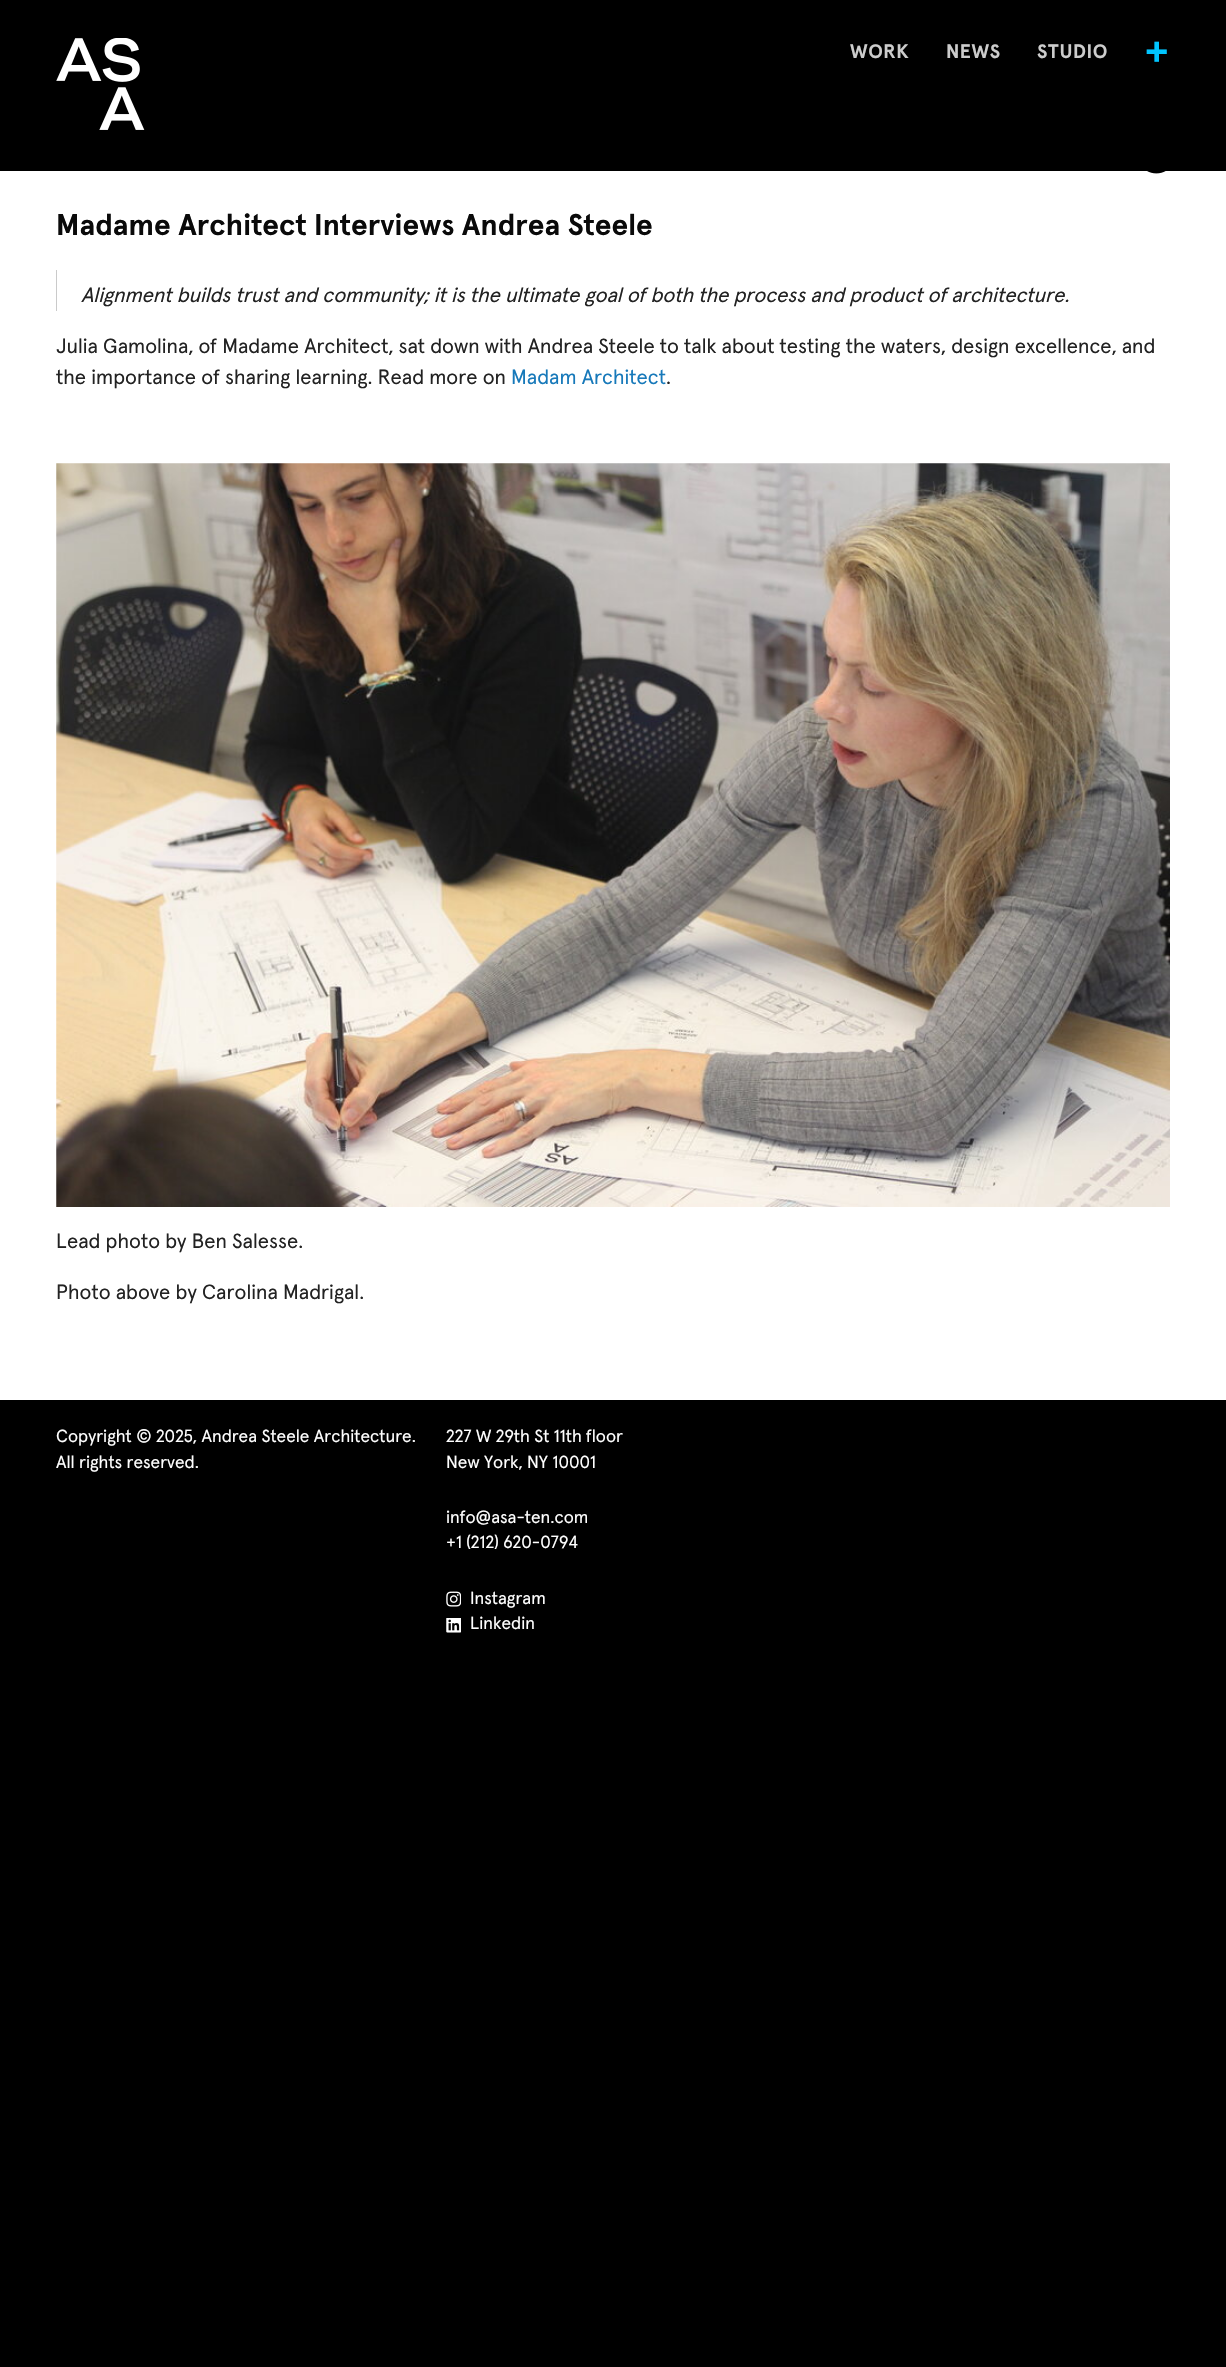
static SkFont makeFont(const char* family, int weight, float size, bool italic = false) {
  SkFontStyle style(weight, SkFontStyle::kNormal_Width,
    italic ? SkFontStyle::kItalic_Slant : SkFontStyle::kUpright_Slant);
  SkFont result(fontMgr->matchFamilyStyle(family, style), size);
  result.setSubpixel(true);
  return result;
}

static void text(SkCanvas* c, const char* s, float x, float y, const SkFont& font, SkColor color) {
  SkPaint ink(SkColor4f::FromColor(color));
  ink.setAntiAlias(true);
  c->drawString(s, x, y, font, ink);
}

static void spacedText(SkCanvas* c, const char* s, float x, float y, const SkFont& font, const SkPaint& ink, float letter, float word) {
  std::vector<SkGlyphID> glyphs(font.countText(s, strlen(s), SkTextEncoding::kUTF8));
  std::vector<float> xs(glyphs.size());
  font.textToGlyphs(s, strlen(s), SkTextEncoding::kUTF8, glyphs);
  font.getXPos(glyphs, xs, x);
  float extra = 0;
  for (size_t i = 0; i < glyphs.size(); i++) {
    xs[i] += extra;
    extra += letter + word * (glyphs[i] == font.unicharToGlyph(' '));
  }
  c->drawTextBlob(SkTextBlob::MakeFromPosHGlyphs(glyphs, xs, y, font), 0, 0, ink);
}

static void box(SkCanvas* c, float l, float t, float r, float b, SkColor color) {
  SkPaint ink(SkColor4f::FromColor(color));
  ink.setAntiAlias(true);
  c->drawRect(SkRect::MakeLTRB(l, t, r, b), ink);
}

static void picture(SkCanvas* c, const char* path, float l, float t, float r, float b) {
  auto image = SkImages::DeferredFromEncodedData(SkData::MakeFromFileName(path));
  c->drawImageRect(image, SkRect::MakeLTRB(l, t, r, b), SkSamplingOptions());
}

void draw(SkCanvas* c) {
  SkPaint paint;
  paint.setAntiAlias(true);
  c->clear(0xff000000);
  picture(c, "img_01.png", 56, 38, 145, 130);
  SkFont face1 = makeFont("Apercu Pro", 700, 19.5f);
  paint.setColor(0xffcccccc);
  spacedText(c, "WORK", 850, 58, face1, paint, 0.5f, 0);
  spacedText(c, "NEWS", 946, 58, face1, paint, 0.5f, 0);
  spacedText(c, "STUDIO", 1037, 58, face1, paint, 0.5f, 0);
  SkFont face2 = makeFont("Apercu Pro", 700, 42);
  paint.setColor(0xff00c5ff);
  spacedText(c, "+", 1144, 65, face2, paint, 0.5f, 0);
  box(c, 0, 171, 1226, 1400, 0xffffffff);
  picture(c, "img_02.png", 1147, 171, 1166, 174);
  SkFont face3 = makeFont("Apercu Pro", 700, 29.9f);
  text(c, "Madame Architect Interviews Andrea Steele", 56, 235, face3, 0xff0a0a0a);
  box(c, 56, 270, 57, 311, 0xffcacaca);
  SkFont face4 = makeFont("Apercu Pro", 400, 20.57f, true);
  text(c, "Alignment builds trust and community; it is the ultimate goal of both the process and product of architecture.", 81, 302, face4, 0xff222222);
  SkFont face5 = makeFont("Apercu Pro", 400, 20.57f);
  text(c, "Julia Gamolina, of Madame Architect, sat down with Andrea Steele to talk about testing the waters, design excellence, and", 56, 353, face5, 0xff222222);
  text(c, "the importance of sharing learning. Read more on", 56, 384, face5, 0xff222222);
  text(c, "Madam Architect", 511, 384, face5, 0xff1779ba);
  text(c, ".", 666, 384, face5, 0xff222222);
  picture(c, "img_03.png", 56, 463, 1170, 1207);
  text(c, "Lead photo by Ben Salesse.", 56, 1248, face5, 0xff222222);
  text(c, "Photo above by Carolina Madrigal.", 56, 1299, face5, 0xff222222);
  SkFont face6 = makeFont("Apercu Pro", 400, 17.5f);
  text(c, "Copyright © 2025, Andrea Steele Architecture.", 56, 1442, face6, 0xffffffff);
  text(c, "All rights reserved.", 56, 1468, face6, 0xffffffff);
  text(c, "227 W 29th St 11th floor", 446, 1442, face6, 0xffffffff);
  text(c, "New York, NY 10001", 446, 1468, face6, 0xffffffff);
  text(c, "info@asa-ten.com", 446, 1523, face6, 0xffffffff);
  text(c, "+1 (212) 620-0794", 446, 1548, face6, 0xffffffff);
  picture(c, "img_04.png", 446, 1591, 461, 1607);
  text(c, "Instagram", 470, 1604, face6, 0xffffffff);
  picture(c, "img_05.png", 446, 1618, 461, 1633);
  text(c, "Linkedin", 470, 1629, face6, 0xffffffff);
}
